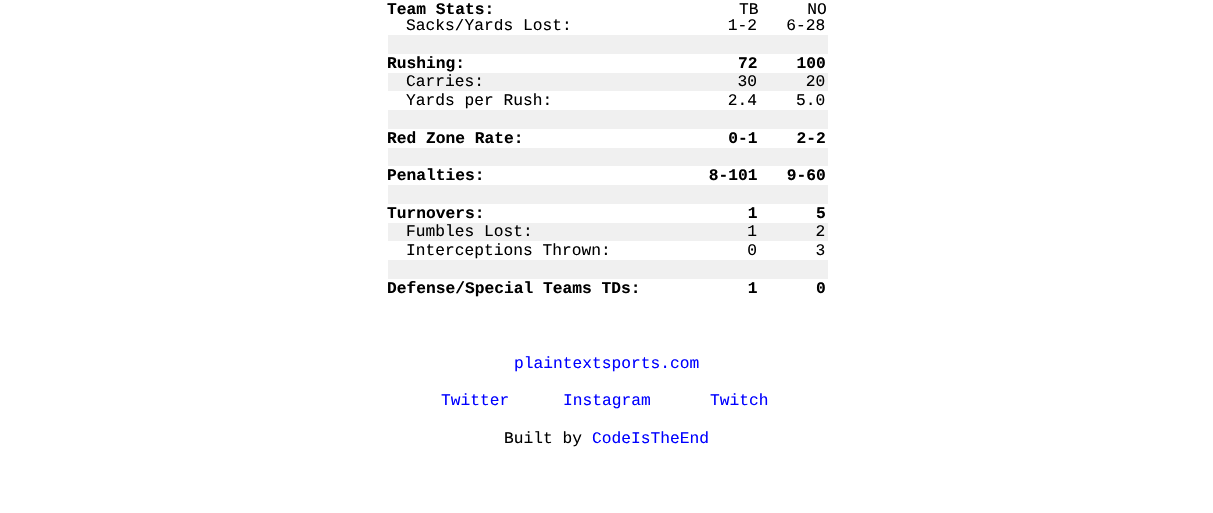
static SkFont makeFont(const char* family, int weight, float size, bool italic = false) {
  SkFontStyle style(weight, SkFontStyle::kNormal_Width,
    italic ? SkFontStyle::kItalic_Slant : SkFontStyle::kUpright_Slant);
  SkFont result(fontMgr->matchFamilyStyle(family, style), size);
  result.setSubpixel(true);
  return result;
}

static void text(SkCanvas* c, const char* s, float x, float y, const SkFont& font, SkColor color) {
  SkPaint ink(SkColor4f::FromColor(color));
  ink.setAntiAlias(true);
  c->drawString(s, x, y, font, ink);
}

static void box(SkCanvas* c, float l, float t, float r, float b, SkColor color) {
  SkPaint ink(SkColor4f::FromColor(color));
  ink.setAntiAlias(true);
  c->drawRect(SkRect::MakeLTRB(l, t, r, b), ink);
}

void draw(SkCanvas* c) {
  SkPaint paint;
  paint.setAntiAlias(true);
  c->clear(0xffffffff);
  SkFont face1 = makeFont("Liberation Mono", 400, 16.25f);
  text(c, "Sacks/Yards Lost:                1-2   6-28", 406, 30, face1, 0xff000000);
  box(c, 437, 18, 503, 19, 0xffffffff);
  SkFont face2 = makeFont("Liberation Mono", 700, 16.25f);
  text(c, "Team Stats:", 387, 14, face2, 0xff000000);
  text(c, "TB     NO", 739, 14, face1, 0xff000000);
  box(c, 388, 35, 828, 54, 0xfff0f0f0);
  text(c, "Rushing:                            72    100", 387, 68, face2, 0xff000000);
  box(c, 388, 73, 828, 91, 0xfff0f0f0);
  text(c, "Carries:                          30     20", 406, 86, face1, 0xff000000);
  text(c, "Yards per Rush:                  2.4    5.0", 406, 105, face1, 0xff000000);
  box(c, 388, 110, 828, 129, 0xfff0f0f0);
  text(c, "Red Zone Rate:                     0-1    2-2", 387, 143, face2, 0xff000000);
  box(c, 388, 148, 828, 166, 0xfff0f0f0);
  text(c, "Penalties:                       8-101   9-60", 387, 180, face2, 0xff000000);
  box(c, 388, 185, 828, 204, 0xfff0f0f0);
  text(c, "Turnovers:                           1      5", 387, 218, face2, 0xff000000);
  box(c, 388, 223, 828, 241, 0xfff0f0f0);
  text(c, "Fumbles Lost:                      1      2", 406, 236, face1, 0xff000000);
  text(c, "Interceptions Thrown:              0      3", 406, 255, face1, 0xff000000);
  box(c, 388, 260, 828, 279, 0xfff0f0f0);
  text(c, "Defense/Special Teams TDs:           1      0", 387, 293, face2, 0xff000000);
  text(c, "plaintextsports.com", 514, 368, face1, 0xff0000ff);
  text(c, "Twitter", 441, 405, face1, 0xff0000ff);
  text(c, "Instagram", 563, 405, face1, 0xff0000ff);
  text(c, "Twitch", 710, 405, face1, 0xff0000ff);
  text(c, "Built by", 504, 443, face1, 0xff000000);
  text(c, "CodeIsTheEnd", 592, 443, face1, 0xff0000ff);
}
